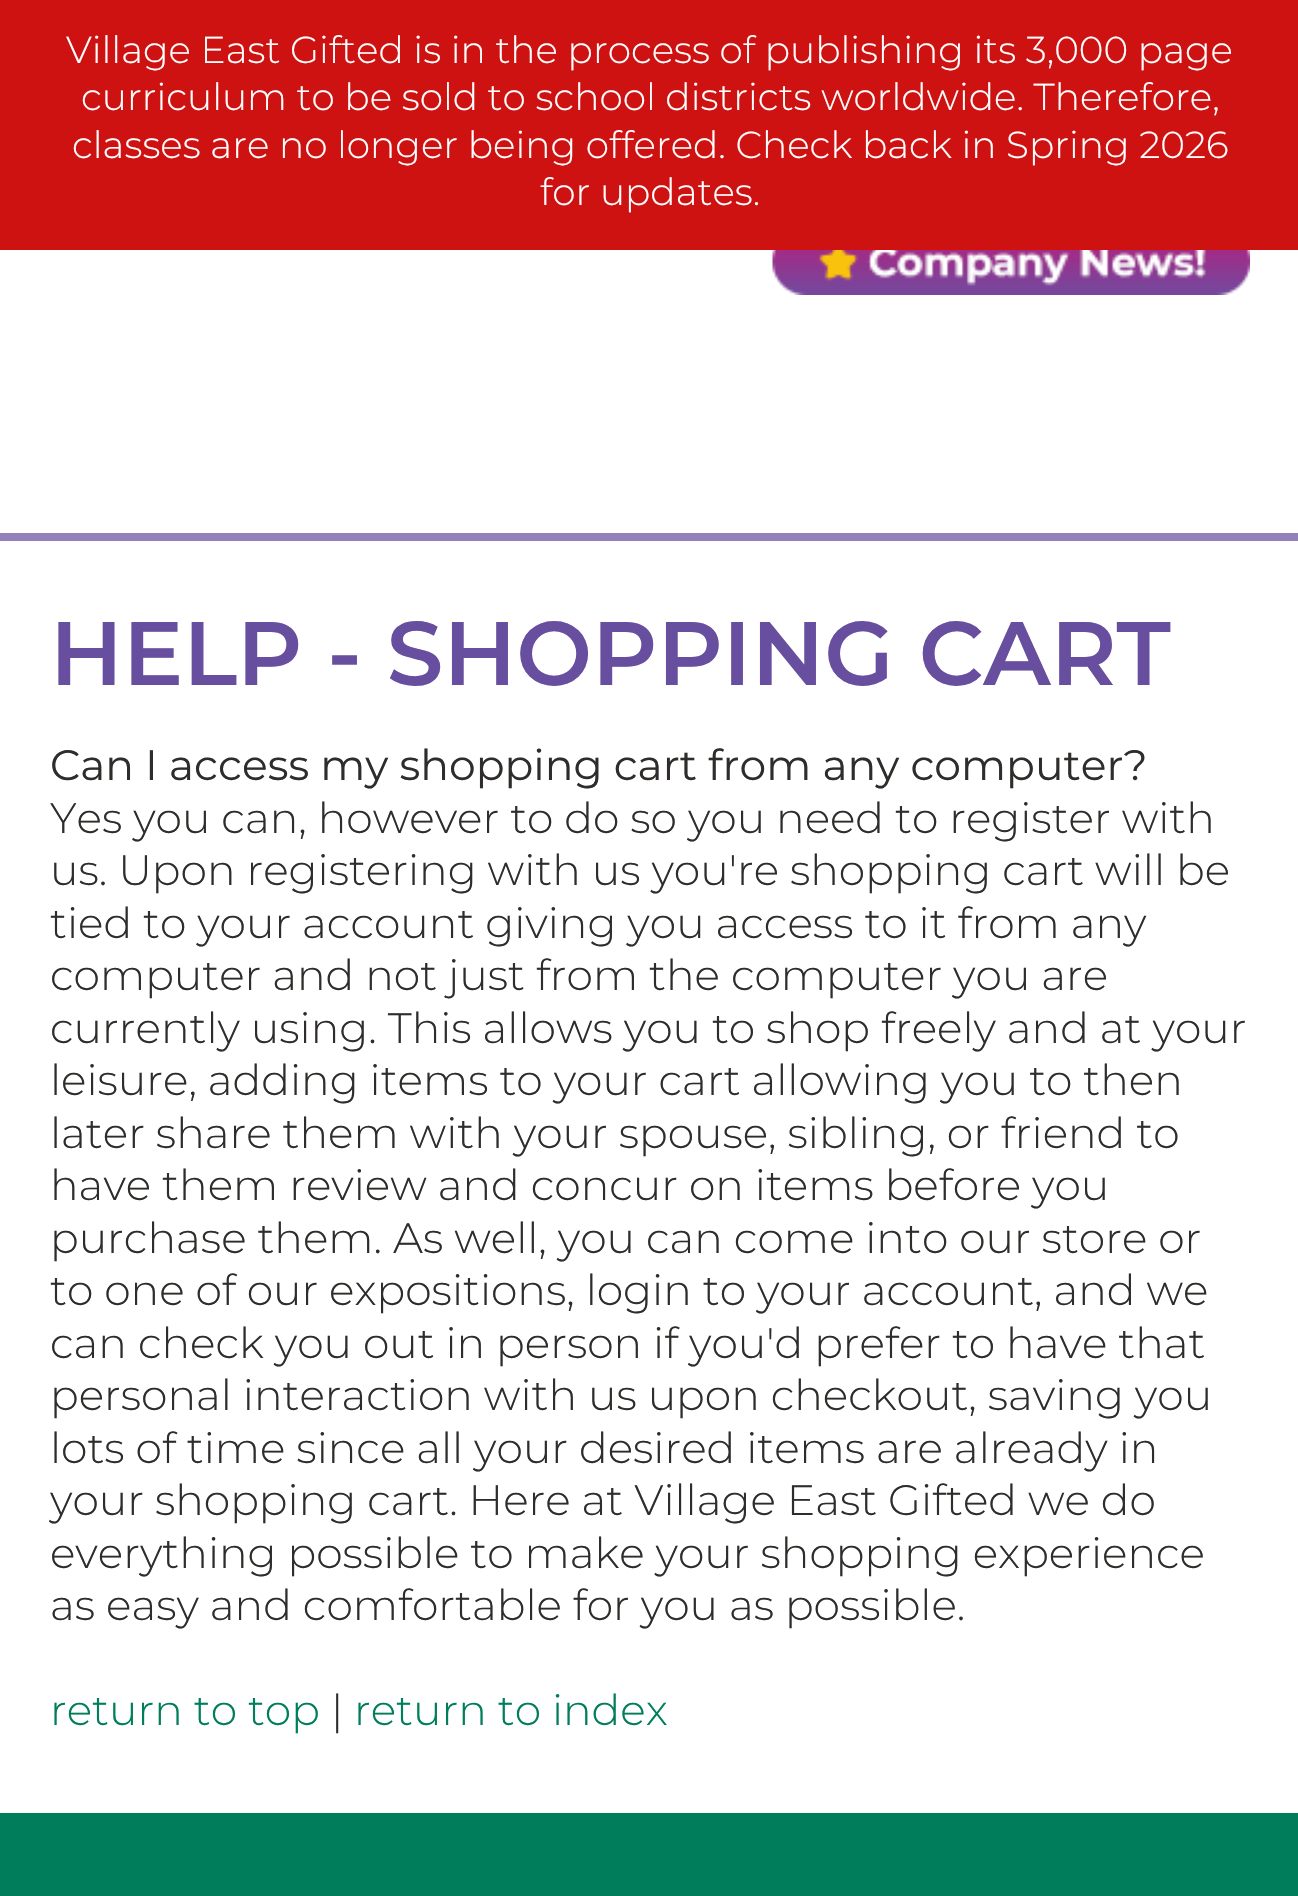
static SkFont makeFont(const char* family, int weight, float size, bool italic = false) {
  SkFontStyle style(weight, SkFontStyle::kNormal_Width,
    italic ? SkFontStyle::kItalic_Slant : SkFontStyle::kUpright_Slant);
  SkFont result(fontMgr->matchFamilyStyle(family, style), size);
  result.setSubpixel(true);
  return result;
}

static void text(SkCanvas* c, const char* s, float x, float y, const SkFont& font, SkColor color) {
  SkPaint ink(SkColor4f::FromColor(color));
  ink.setAntiAlias(true);
  c->drawString(s, x, y, font, ink);
}

static void box(SkCanvas* c, float l, float t, float r, float b, SkColor color) {
  SkPaint ink(SkColor4f::FromColor(color));
  ink.setAntiAlias(true);
  c->drawRect(SkRect::MakeLTRB(l, t, r, b), ink);
}

static void picture(SkCanvas* c, const char* path, float l, float t, float r, float b) {
  auto image = SkImages::DeferredFromEncodedData(SkData::MakeFromFileName(path));
  c->drawImageRect(image, SkRect::MakeLTRB(l, t, r, b), SkSamplingOptions());
}

void draw(SkCanvas* c) {
  SkPaint paint;
  paint.setAntiAlias(true);
  c->clear(0xffffffff);
  box(c, 0, 0, 1298, 250, 0xffce1212);
  SkFont face1 = makeFont("Montserrat", 300, 37.5f);
  text(c, "Village East Gifted is in the process of publishing its 3,000 page", 66, 63, face1, 0xffffffff);
  text(c, "curriculum to be sold to school districts worldwide. Therefore,", 81, 110, face1, 0xffffffff);
  text(c, "classes are no longer being offered. Check back in Spring 2026", 72, 158, face1, 0xffffffff);
  text(c, "for updates.", 540, 205, face1, 0xffffffff);
  box(c, 0, 533, 1298, 541, 0xff9381b9);
  picture(c, "img_01.png", 772, 250, 1250, 295);
  SkFont face2 = makeFont("Montserrat", 600, 90);
  text(c, "HELP - SHOPPING CART", 50, 685, face2, 0xff674e9e);
  SkFont face3 = makeFont("Montserrat", 400, 42.5f);
  text(c, "Can I access my shopping cart from any computer?", 50, 780, face3, 0xff2e2d2b);
  SkFont face4 = makeFont("Montserrat", 300, 42.5f);
  text(c, "Yes you can, however to do so you need to register with", 50, 833, face4, 0xff2e2d2b);
  text(c, "us. Upon registering with us you're shopping cart will be", 50, 885, face4, 0xff2e2d2b);
  text(c, "tied to your account giving you access to it from any", 50, 938, face4, 0xff2e2d2b);
  text(c, "computer and not just from the computer you are", 50, 990, face4, 0xff2e2d2b);
  text(c, "currently using. This allows you to shop freely and at your", 50, 1043, face4, 0xff2e2d2b);
  text(c, "leisure, adding items to your cart allowing you to then", 50, 1095, face4, 0xff2e2d2b);
  text(c, "later share them with your spouse, sibling, or friend to", 50, 1148, face4, 0xff2e2d2b);
  text(c, "have them review and concur on items before you", 50, 1200, face4, 0xff2e2d2b);
  text(c, "purchase them. As well, you can come into our store or", 50, 1253, face4, 0xff2e2d2b);
  text(c, "to one of our expositions, login to your account, and we", 50, 1305, face4, 0xff2e2d2b);
  text(c, "can check you out in person if you'd prefer to have that", 50, 1358, face4, 0xff2e2d2b);
  text(c, "personal interaction with us upon checkout, saving you", 50, 1410, face4, 0xff2e2d2b);
  text(c, "lots of time since all your desired items are already in", 50, 1463, face4, 0xff2e2d2b);
  text(c, "your shopping cart. Here at Village East Gifted we do", 50, 1515, face4, 0xff2e2d2b);
  text(c, "everything possible to make your shopping experience", 50, 1568, face4, 0xff2e2d2b);
  text(c, "as easy and comfortable for you as possible.", 50, 1620, face4, 0xff2e2d2b);
  text(c, "return to top", 50, 1725, face4, 0xff007d5b);
  text(c, "|", 331, 1725, face4, 0xff2e2d2b);
  text(c, "return to index", 354, 1725, face4, 0xff007d5b);
  box(c, 0, 1813, 1298, 1896, 0xff007d5b);
}
